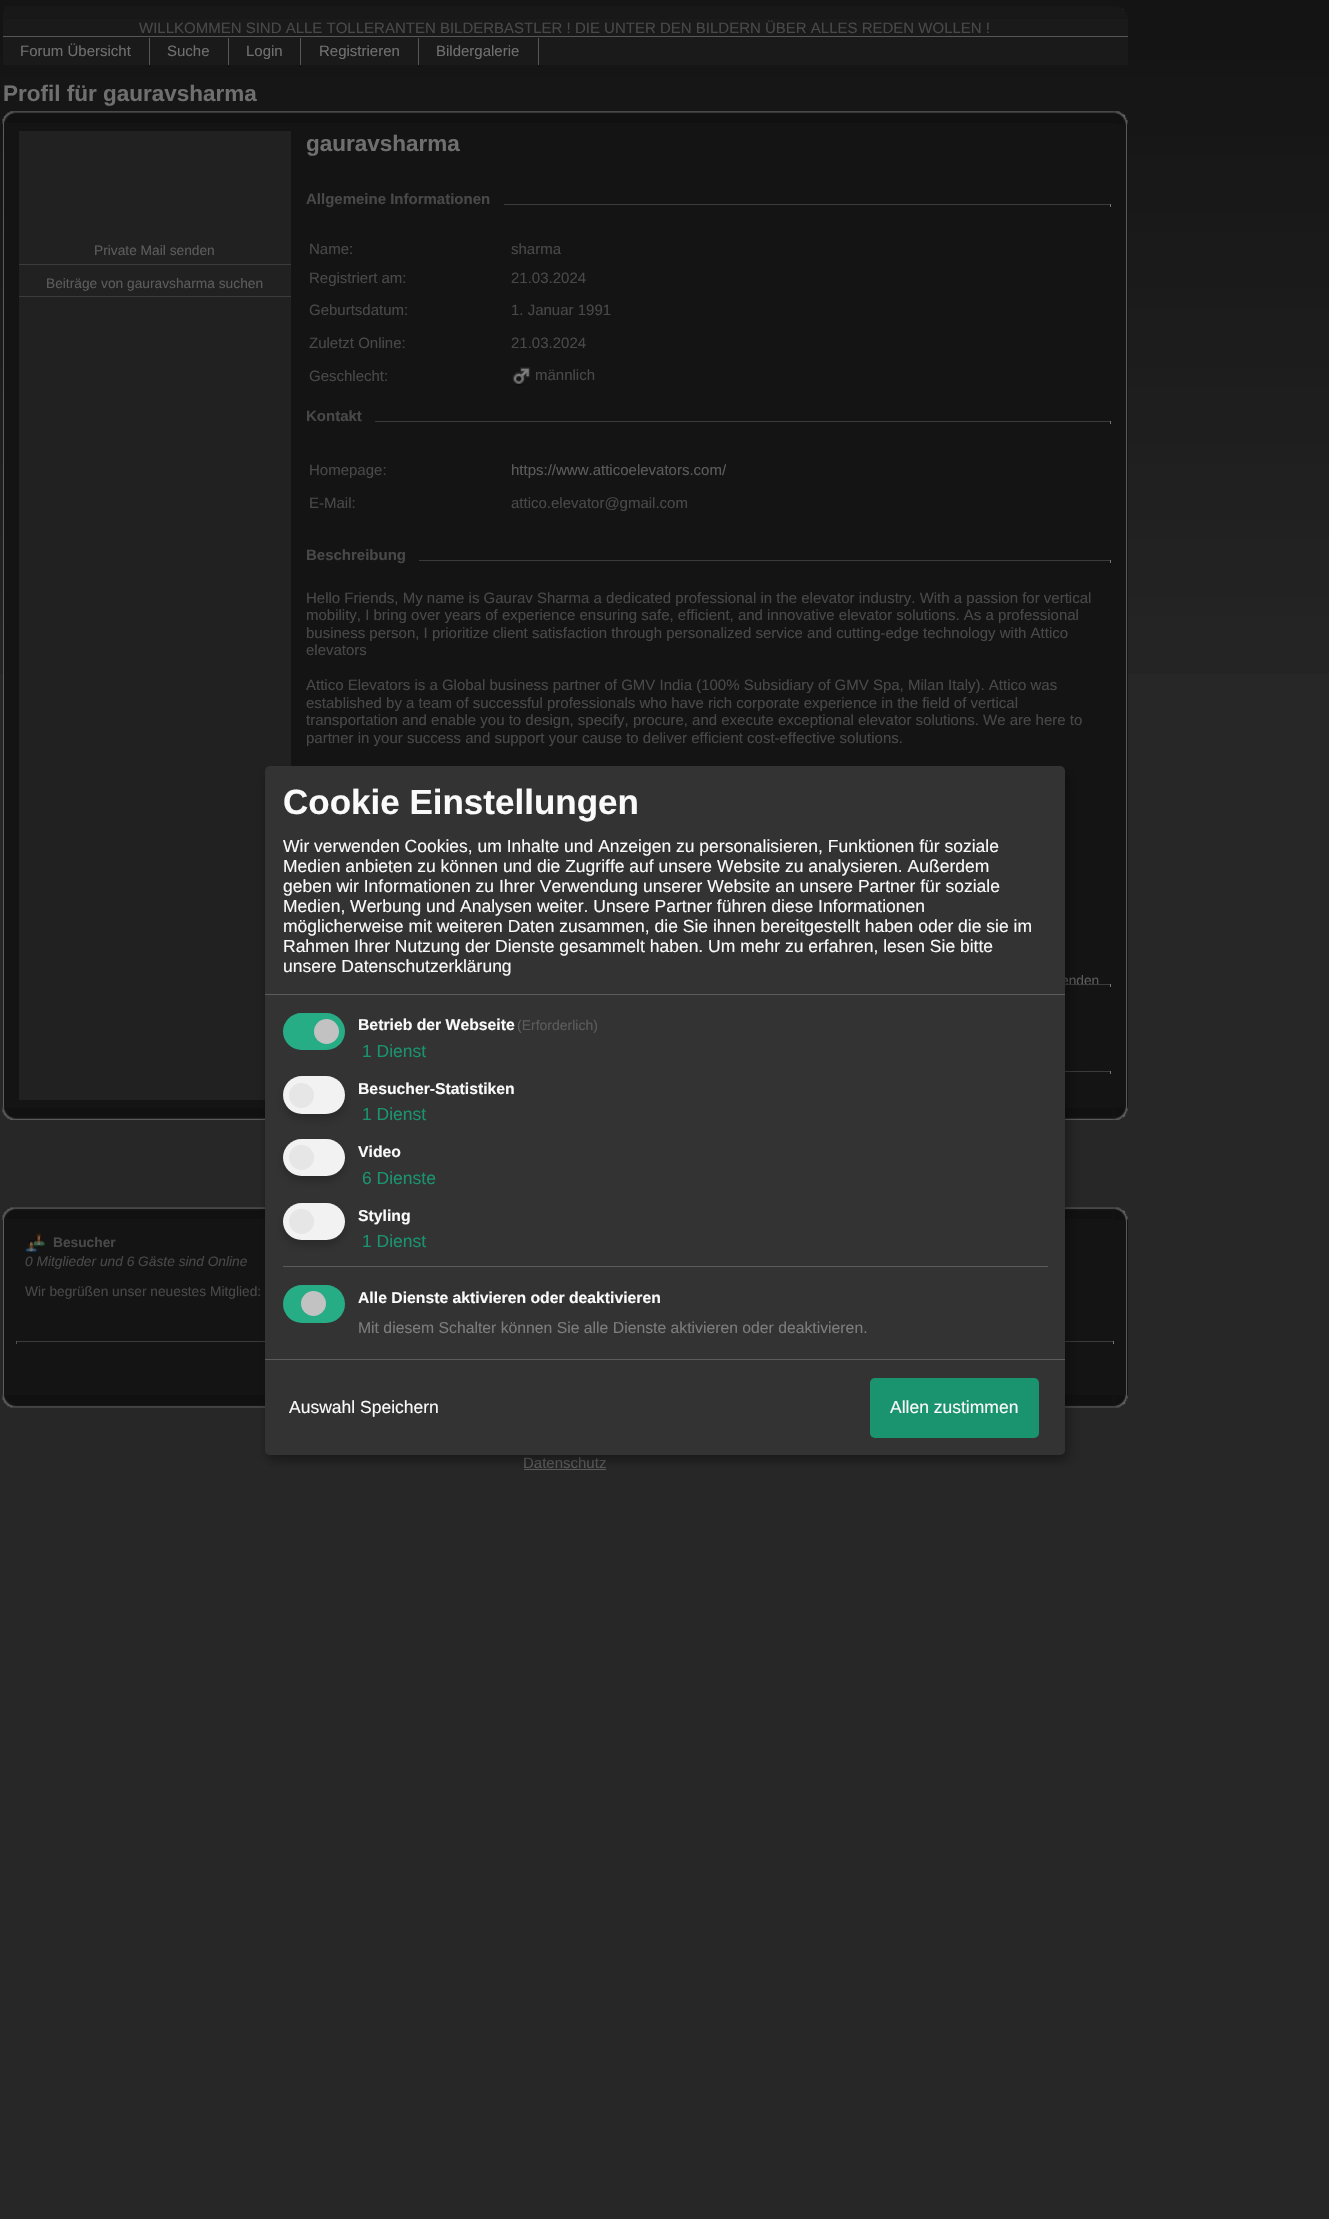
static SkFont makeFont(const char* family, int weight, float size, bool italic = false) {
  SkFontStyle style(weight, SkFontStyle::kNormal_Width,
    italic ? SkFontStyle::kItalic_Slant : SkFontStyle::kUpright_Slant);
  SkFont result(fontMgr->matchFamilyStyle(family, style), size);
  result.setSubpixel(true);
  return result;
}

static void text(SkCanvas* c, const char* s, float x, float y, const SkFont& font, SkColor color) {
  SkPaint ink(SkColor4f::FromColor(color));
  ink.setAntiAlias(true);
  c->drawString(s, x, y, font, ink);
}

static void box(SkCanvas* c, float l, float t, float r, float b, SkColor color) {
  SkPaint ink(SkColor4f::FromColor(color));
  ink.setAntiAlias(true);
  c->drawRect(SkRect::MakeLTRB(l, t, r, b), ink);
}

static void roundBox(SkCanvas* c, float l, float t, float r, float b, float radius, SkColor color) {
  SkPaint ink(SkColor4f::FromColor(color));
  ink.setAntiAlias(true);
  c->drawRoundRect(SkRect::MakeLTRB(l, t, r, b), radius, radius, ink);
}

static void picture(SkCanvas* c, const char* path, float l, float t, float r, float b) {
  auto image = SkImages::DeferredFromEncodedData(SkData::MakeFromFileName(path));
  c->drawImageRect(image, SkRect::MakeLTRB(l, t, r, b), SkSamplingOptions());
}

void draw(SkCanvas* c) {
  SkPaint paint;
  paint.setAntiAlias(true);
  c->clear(0xff272727);
  picture(c, "img_01.png", 0, 0, 1329, 674);
  picture(c, "img_02.png", 2, 6, 1114, 19);
  picture(c, "img_03.png", 1114, 6, 1128, 19);
  box(c, 3, 19, 1128, 65, 0xff1a1a1a);
  SkFont face1 = makeFont("Liberation Sans", 400, 15);
  text(c, "WILLKOMMEN SIND ALLE TOLLERANTEN BILDERBASTLER ! DIE UNTER DEN BILDERN ÜBER ALLES REDEN WOLLEN !", 139, 33, face1, 0xff484848);
  box(c, 3, 36, 1128, 37, 0xff575757);
  box(c, 149, 38, 150, 65, 0xff575757);
  text(c, "Forum Übersicht", 20, 56, face1, 0xff6f6f6f);
  box(c, 228, 38, 229, 65, 0xff575757);
  text(c, "Suche", 167, 56, face1, 0xff6f6f6f);
  box(c, 300, 38, 301, 65, 0xff575757);
  text(c, "Login", 246, 56, face1, 0xff6f6f6f);
  box(c, 418, 38, 419, 65, 0xff575757);
  text(c, "Registrieren", 319, 56, face1, 0xff6f6f6f);
  box(c, 538, 38, 539, 65, 0xff575757);
  text(c, "Bildergalerie", 436, 56, face1, 0xff6f6f6f);
  SkFont face2 = makeFont("Liberation Sans", 700, 22.5f);
  text(c, "Profil für gauravsharma", 3, 101, face2, 0xff6f6f6f);
  picture(c, "img_04.png", 2, 111, 1114, 124);
  box(c, 4, 123, 1128, 1109, 0xff141414);
  box(c, 1126, 123, 1127, 1109, 0xff5c5c5c);
  picture(c, "img_05.png", 1113, 111, 1128, 124);
  box(c, 3, 123, 4, 1109, 0xff5c5c5c);
  box(c, 19, 131, 291, 1100, 0xff212121);
  box(c, 19, 264, 291, 265, 0xff3b3b3b);
  SkFont face3 = makeFont("Liberation Sans", 400, 13.75f);
  text(c, "Private Mail senden", 94, 255, face3, 0xff5b5b5b);
  box(c, 19, 296, 291, 297, 0xff3b3b3b);
  text(c, "Beiträge von gauravsharma suchen", 46, 288, face3, 0xff5b5b5b);
  text(c, "gauravsharma", 306, 151, face2, 0xff6f6f6f);
  SkFont face4 = makeFont("Liberation Sans", 700, 15);
  text(c, "Allgemeine Informationen", 306, 204, face4, 0xff484848);
  box(c, 504, 204, 1111, 205, 0xff3b3b3b);
  box(c, 1110, 204, 1111, 207, 0xff777777);
  text(c, "Name:", 309, 254, face1, 0xff484848);
  text(c, "sharma", 511, 254, face1, 0xff484848);
  text(c, "Registriert am:", 309, 283, face1, 0xff484848);
  text(c, "21.03.2024", 511, 283, face1, 0xff484848);
  text(c, "Geburtsdatum:", 309, 315, face1, 0xff484848);
  text(c, "1. Januar 1991", 511, 315, face1, 0xff484848);
  text(c, "Zuletzt Online:", 309, 348, face1, 0xff484848);
  text(c, "21.03.2024", 511, 348, face1, 0xff484848);
  text(c, "Geschlecht:", 309, 381, face1, 0xff484848);
  picture(c, "img_06.png", 512, 367, 531, 386);
  text(c, "männlich", 535, 380, face1, 0xff484848);
  text(c, "Kontakt", 306, 421, face4, 0xff484848);
  box(c, 375, 421, 1111, 422, 0xff3b3b3b);
  box(c, 1110, 421, 1111, 424, 0xff777777);
  text(c, "Homepage:", 309, 475, face1, 0xff484848);
  text(c, "https://www.atticoelevators.com/", 511, 475, face1, 0xff5b5b5b);
  text(c, "E-Mail:", 309, 508, face1, 0xff484848);
  text(c, "attico.elevator@gmail.com", 511, 508, face1, 0xff484848);
  text(c, "Beschreibung", 306, 560, face4, 0xff484848);
  box(c, 419, 560, 1111, 561, 0xff3b3b3b);
  box(c, 1110, 560, 1111, 563, 0xff777777);
  text(c, "Hello Friends, My name is Gaurav Sharma a dedicated professional in the elevator industry. With a passion for vertical", 306, 603, face1, 0xff484848);
  text(c, "mobility, I bring over years of experience ensuring safe, efficient, and innovative elevator solutions. As a professional", 306, 620, face1, 0xff484848);
  text(c, "business person, I prioritize client satisfaction through personalized service and cutting-edge technology with Attico", 306, 638, face1, 0xff484848);
  text(c, "elevators", 306, 655, face1, 0xff484848);
  text(c, "Attico Elevators is a Global business partner of GMV India (100% Subsidiary of GMV Spa, Milan Italy). Attico was", 306, 690, face1, 0xff484848);
  text(c, "established by a team of successful professionals who have rich corporate experience in the field of vertical", 306, 708, face1, 0xff484848);
  text(c, "transportation and enable you to design, specify, procure, and execute exceptional elevator solutions. We are here to", 306, 725, face1, 0xff484848);
  text(c, "partner in your success and support your cause to deliver efficient cost-effective solutions.", 306, 743, face1, 0xff484848);
  text(c, "enden", 1061, 985, face3, 0xff5b5b5b);
  box(c, 1065, 984, 1111, 985, 0xff3b3b3b);
  box(c, 1110, 984, 1111, 987, 0xff777777);
  box(c, 1065, 1071, 1111, 1072, 0xff3b3b3b);
  box(c, 1110, 1071, 1111, 1074, 0xff777777);
  picture(c, "img_07.png", 2, 1107, 1114, 1120);
  picture(c, "img_08.png", 1114, 1107, 1128, 1120);
  picture(c, "img_09.png", 2, 1207, 1114, 1220);
  box(c, 4, 1219, 1128, 1396, 0xff141414);
  box(c, 1126, 1219, 1127, 1396, 0xff5c5c5c);
  picture(c, "img_10.png", 1113, 1207, 1128, 1220);
  box(c, 3, 1219, 4, 1396, 0xff5c5c5c);
  picture(c, "img_11.png", 25, 1233, 45, 1254);
  SkFont face5 = makeFont("Liberation Sans", 700, 13.75f);
  text(c, "Besucher", 53, 1247, face5, 0xff484848);
  SkFont face6 = makeFont("Liberation Sans", 400, 13.75f, true);
  text(c, "0 Mitglieder und 6 Gäste sind Online", 25, 1266, face6, 0xff484848);
  text(c, "Wir begrüßen unser neuestes Mitglied:", 25, 1296, face3, 0xff484848);
  box(c, 16, 1341, 1114, 1342, 0xff3b3b3b);
  box(c, 1113, 1341, 1114, 1344, 0xff777777);
  box(c, 16, 1341, 17, 1344, 0xff505050);
  picture(c, "img_12.png", 2, 1395, 1114, 1408);
  picture(c, "img_13.png", 1113, 1395, 1128, 1408);
  text(c, "Datenschutz", 523, 1468, face1, 0xff5b5b5b);
  box(c, 524, 1469, 606, 1470, 0xff5b5b5b);
  paint.setColor(0x30000000);
  paint.setMaskFilter(SkMaskFilter::MakeBlur(kNormal_SkBlurStyle, 6));
  c->drawRoundRect(SkRect::MakeLTRB(271, 773, 1071, 1461), 5, 5, paint);
  paint.setMaskFilter(nullptr);
  paint.setColor(0x33000000);
  paint.setMaskFilter(SkMaskFilter::MakeBlur(kNormal_SkBlurStyle, 4));
  c->drawRoundRect(SkRect::MakeLTRB(265, 771, 1065, 1460), 5, 5, paint);
  paint.setMaskFilter(nullptr);
  roundBox(c, 265, 766, 1065, 1455, 5, 0xff333333);
  box(c, 265, 994, 1065, 995, 0xff5c5c5c);
  SkFont face7 = makeFont("Liberation Sans", 700, 35);
  text(c, "Cookie Einstellungen", 283, 814, face7, 0xfffafafa);
  SkFont face8 = makeFont("Liberation Sans", 400, 17.5f);
  text(c, "Wir verwenden Cookies, um Inhalte und Anzeigen zu personalisieren, Funktionen für soziale", 283, 852, face8, 0xfffafafa);
  text(c, "Medien anbieten zu können und die Zugriffe auf unsere Website zu analysieren. Außerdem", 283, 872, face8, 0xfffafafa);
  text(c, "geben wir Informationen zu Ihrer Verwendung unserer Website an unsere Partner für soziale", 283, 892, face8, 0xfffafafa);
  text(c, "Medien, Werbung und Analysen weiter. Unsere Partner führen diese Informationen", 283, 912, face8, 0xfffafafa);
  text(c, "möglicherweise mit weiteren Daten zusammen, die Sie ihnen bereitgestellt haben oder die sie im", 283, 932, face8, 0xfffafafa);
  text(c, "Rahmen Ihrer Nutzung der Dienste gesammelt haben. Um mehr zu erfahren, lesen Sie bitte", 283, 952, face8, 0xfffafafa);
  text(c, "unsere Datenschutzerklärung", 283, 972, face8, 0xfffafafa);
  roundBox(c, 283, 1013, 345, 1050, 18.5f, 0xff27ad85);
  paint.setColor(0xffc2c2c2);
  c->drawCircle(326.5f, 1031.5f, 12.5f, paint);
  SkFont face9 = makeFont("Liberation Sans", 700, 15.75f);
  text(c, "Betrieb der Webseite", 358, 1030, face9, 0xfffafafa);
  SkFont face10 = makeFont("Liberation Sans", 400, 14);
  text(c, "(Erforderlich)", 517, 1030, face10, 0xff5b5b5b);
  text(c, "1 Dienst", 362, 1057, face8, 0xff1a936f);
  paint.setColor(0x33000000);
  paint.setMaskFilter(SkMaskFilter::MakeBlur(kNormal_SkBlurStyle, 4));
  c->drawRoundRect(SkRect::MakeLTRB(283, 1081, 345, 1119), 19, 19, paint);
  paint.setMaskFilter(nullptr);
  roundBox(c, 283, 1076, 345, 1114, 19, 0xfff2f2f2);
  paint.setColor(0xffe6e6e6);
  c->drawCircle(301.5f, 1095.5f, 12.5f, paint);
  text(c, "Besucher-Statistiken", 358, 1094, face9, 0xfffafafa);
  text(c, "1 Dienst", 362, 1120, face8, 0xff1a936f);
  paint.setColor(0x33000000);
  paint.setMaskFilter(SkMaskFilter::MakeBlur(kNormal_SkBlurStyle, 4));
  c->drawRoundRect(SkRect::MakeLTRB(283, 1144, 345, 1181), 18.5f, 18.5f, paint);
  paint.setMaskFilter(nullptr);
  roundBox(c, 283, 1139, 345, 1176, 18.5f, 0xfff2f2f2);
  paint.setColor(0xffe6e6e6);
  c->drawCircle(301.5f, 1157.5f, 12.5f, paint);
  text(c, "Video", 358, 1157, face9, 0xfffafafa);
  text(c, "6 Dienste", 362, 1184, face8, 0xff1a936f);
  paint.setColor(0x33000000);
  paint.setMaskFilter(SkMaskFilter::MakeBlur(kNormal_SkBlurStyle, 4));
  c->drawRoundRect(SkRect::MakeLTRB(283, 1208, 345, 1245), 18.5f, 18.5f, paint);
  paint.setMaskFilter(nullptr);
  roundBox(c, 283, 1203, 345, 1240, 18.5f, 0xfff2f2f2);
  paint.setColor(0xffe6e6e6);
  c->drawCircle(301.5f, 1221.5f, 12.5f, paint);
  text(c, "Styling", 358, 1221, face9, 0xfffafafa);
  text(c, "1 Dienst", 362, 1247, face8, 0xff1a936f);
  box(c, 283, 1266, 1048, 1267, 0xff5c5c5c);
  roundBox(c, 283, 1285, 345, 1323, 19, 0xff27ad85);
  paint.setColor(0xffc2c2c2);
  c->drawCircle(313.5f, 1303.5f, 12.5f, paint);
  text(c, "Alle Dienste aktivieren oder deaktivieren", 358, 1303, face9, 0xfffafafa);
  SkFont face11 = makeFont("Liberation Sans", 400, 15.75f);
  text(c, "Mit diesem Schalter können Sie alle Dienste aktivieren oder deaktivieren.", 358, 1333, face11, 0xff7c7c7c);
  box(c, 265, 1359, 1065, 1360, 0xff5c5c5c);
  text(c, "Auswahl Speichern", 289, 1413, face8, 0xfffafafa);
  roundBox(c, 870, 1378, 1039, 1438, 5, 0xff1a936f);
  text(c, "Allen zustimmen", 890, 1413, face8, 0xfffafafa);
}
